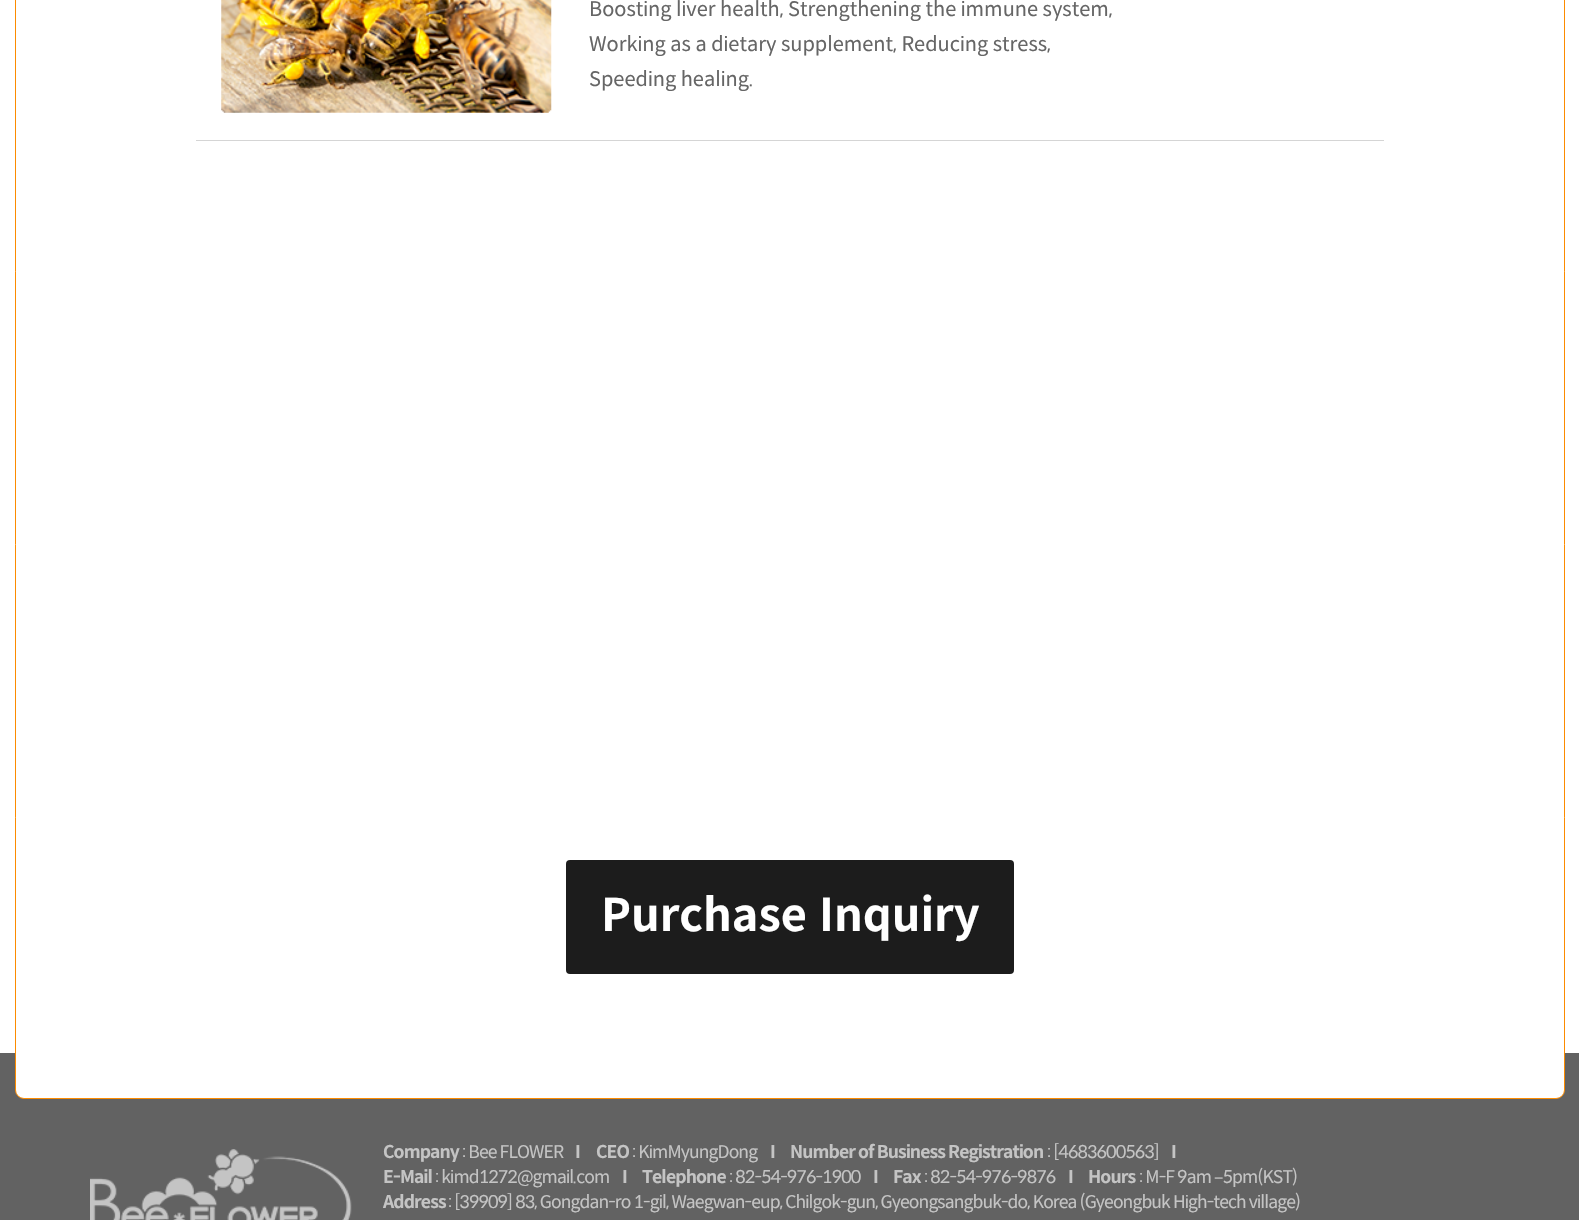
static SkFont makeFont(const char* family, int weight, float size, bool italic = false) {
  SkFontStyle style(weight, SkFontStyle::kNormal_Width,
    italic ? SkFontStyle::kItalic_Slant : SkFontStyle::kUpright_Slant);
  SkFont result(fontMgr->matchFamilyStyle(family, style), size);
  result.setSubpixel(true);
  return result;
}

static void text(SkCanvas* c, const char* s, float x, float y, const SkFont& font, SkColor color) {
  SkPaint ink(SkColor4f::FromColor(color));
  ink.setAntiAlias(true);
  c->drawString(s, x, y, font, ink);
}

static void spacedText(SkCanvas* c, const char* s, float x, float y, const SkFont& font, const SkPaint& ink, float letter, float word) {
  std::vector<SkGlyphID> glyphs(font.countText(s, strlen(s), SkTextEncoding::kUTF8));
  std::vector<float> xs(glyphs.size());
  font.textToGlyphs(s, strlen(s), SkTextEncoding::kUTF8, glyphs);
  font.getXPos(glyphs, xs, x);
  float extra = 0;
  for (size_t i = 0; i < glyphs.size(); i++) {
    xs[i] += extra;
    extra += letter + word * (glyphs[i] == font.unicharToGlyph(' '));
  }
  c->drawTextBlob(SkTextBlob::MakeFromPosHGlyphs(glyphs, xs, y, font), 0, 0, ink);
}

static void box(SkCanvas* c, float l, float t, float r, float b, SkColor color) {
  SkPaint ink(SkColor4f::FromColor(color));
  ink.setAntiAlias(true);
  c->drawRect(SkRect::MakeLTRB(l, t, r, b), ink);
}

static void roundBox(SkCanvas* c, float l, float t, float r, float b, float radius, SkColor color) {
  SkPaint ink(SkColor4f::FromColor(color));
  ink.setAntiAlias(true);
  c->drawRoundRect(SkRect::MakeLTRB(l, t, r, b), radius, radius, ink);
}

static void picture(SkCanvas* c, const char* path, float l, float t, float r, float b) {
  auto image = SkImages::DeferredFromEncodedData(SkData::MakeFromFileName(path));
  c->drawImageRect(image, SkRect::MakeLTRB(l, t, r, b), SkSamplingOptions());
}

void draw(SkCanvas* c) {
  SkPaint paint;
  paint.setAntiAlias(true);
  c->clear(0xffffffff);
  box(c, 0, 1053, 1579, 1220, 0xff626262);
  paint.setColor(0xffffffff);
  c->drawRoundRect(SkRect::MakeLTRB(15.5f, -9.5f, 1564.5f, 1098.5f), 8.5f, 8.5f, paint);
  paint.setStyle(SkPaint::kStroke_Style);
  paint.setStrokeWidth(1);
  paint.setColor(0xfffc8b00);
  c->drawRoundRect(SkRect::MakeLTRB(15.5f, -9.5f, 1564.5f, 1098.5f), 8.5f, 8.5f, paint);
  box(c, 196, 140, 1384, 141, 0xffd5d5d5);
  picture(c, "img_01.png", 221, 0, 552, 113);
  SkFont face1 = makeFont("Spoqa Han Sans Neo", 400, 20);
  text(c, "Boosting liver health, Strengthening the immune system,", 589, 16, face1, 0xff666666);
  text(c, "Working as a dietary supplement, Reducing stress,", 589, 51, face1, 0xff666666);
  text(c, "Speeding healing.", 589, 86, face1, 0xff666666);
  roundBox(c, 566, 860, 1014, 974, 4, 0xff1c1c1c);
  SkFont face2 = makeFont("Noto Sans KR", 700, 45);
  paint.setStyle(SkPaint::kFill_Style);
  paint.setColor(0xffffffff);
  spacedText(c, "Purchase Inquiry", 601, 931, face2, paint, 0, 2);
  picture(c, "img_02.png", 90, 1149, 352, 1220);
  SkFont face3 = makeFont("Spoqa Han Sans Neo", 700, 17.5f);
  paint.setColor(0xffc4c4c4);
  spacedText(c, "Company", 383, 1158, face3, paint, -0.88f, 0);
  SkFont face4 = makeFont("Spoqa Han Sans Neo", 400, 17.5f);
  spacedText(c, ": Bee FLOWER", 462, 1158, face4, paint, -0.88f, 0);
  spacedText(c, "I", 575, 1158, face3, paint, -0.88f, 0);
  spacedText(c, "CEO", 596, 1158, face3, paint, -0.88f, 0);
  spacedText(c, ": KimMyungDong", 632, 1158, face4, paint, -0.88f, 0);
  spacedText(c, "I", 770, 1158, face3, paint, -0.88f, 0);
  spacedText(c, "Number of Business Registration", 790, 1158, face3, paint, -0.88f, 0);
  spacedText(c, ": [4683600563]", 1047, 1158, face4, paint, -0.88f, 0);
  spacedText(c, "I", 1171, 1158, face3, paint, -0.88f, 0);
  spacedText(c, "E-Mail", 383, 1183, face3, paint, -0.88f, 0);
  spacedText(c, ": kimd1272@gmail.com", 435, 1183, face4, paint, -0.88f, 0);
  spacedText(c, "I", 622, 1183, face3, paint, -0.88f, 0);
  spacedText(c, "Telephone", 642, 1183, face3, paint, -0.88f, 0);
  spacedText(c, ": 82-54-976-1900", 729, 1183, face4, paint, -0.88f, 0);
  spacedText(c, "I", 873, 1183, face3, paint, -0.88f, 0);
  spacedText(c, "Fax", 893, 1183, face3, paint, -0.88f, 0);
  spacedText(c, ": 82-54-976-9876", 924, 1183, face4, paint, -0.88f, 0);
  spacedText(c, "I", 1068, 1183, face3, paint, -0.88f, 0);
  spacedText(c, "Hours", 1088, 1183, face3, paint, -0.88f, 0);
  spacedText(c, ": M-F 9am –5pm(KST)", 1139, 1183, face4, paint, -0.88f, 0);
  spacedText(c, "Address", 383, 1208, face3, paint, -0.88f, 0);
  spacedText(c, ": [39909] 83, Gongdan-ro 1-gil, Waegwan-eup, Chilgok-gun, Gyeongsangbuk-do, Korea (Gyeongbuk High-tech village)", 448, 1208, face4, paint, -0.88f, 0);
}
